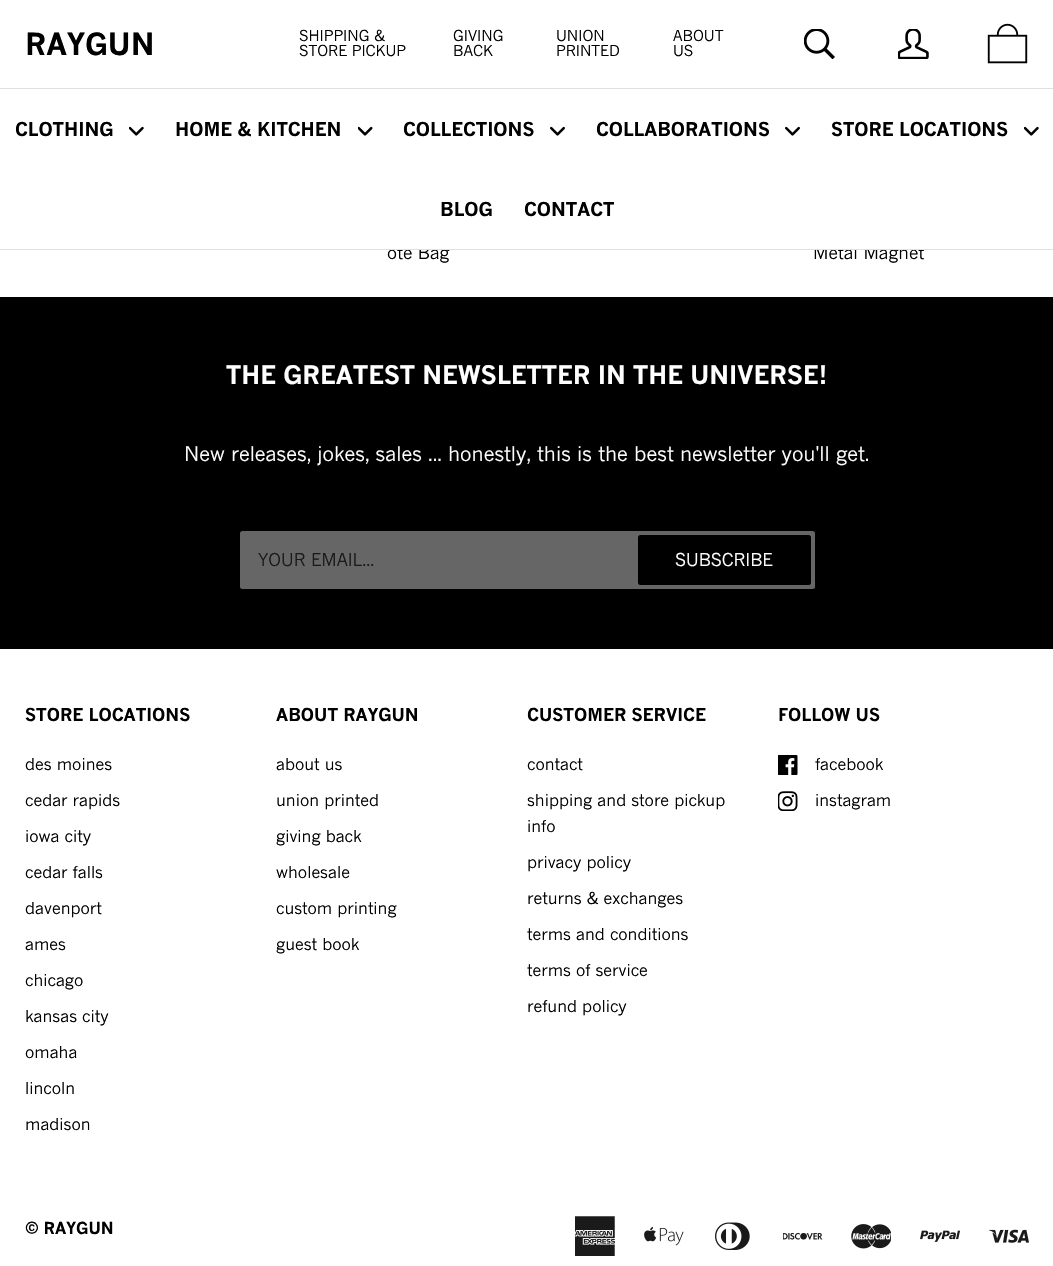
static SkFont makeFont(const char* family, int weight, float size, bool italic = false) {
  SkFontStyle style(weight, SkFontStyle::kNormal_Width,
    italic ? SkFontStyle::kItalic_Slant : SkFontStyle::kUpright_Slant);
  SkFont result(fontMgr->matchFamilyStyle(family, style), size);
  result.setSubpixel(true);
  return result;
}

static void text(SkCanvas* c, const char* s, float x, float y, const SkFont& font, SkColor color) {
  SkPaint ink(SkColor4f::FromColor(color));
  ink.setAntiAlias(true);
  c->drawString(s, x, y, font, ink);
}

static void box(SkCanvas* c, float l, float t, float r, float b, SkColor color) {
  SkPaint ink(SkColor4f::FromColor(color));
  ink.setAntiAlias(true);
  c->drawRect(SkRect::MakeLTRB(l, t, r, b), ink);
}

static void roundBox(SkCanvas* c, float l, float t, float r, float b, float radius, SkColor color) {
  SkPaint ink(SkColor4f::FromColor(color));
  ink.setAntiAlias(true);
  c->drawRoundRect(SkRect::MakeLTRB(l, t, r, b), radius, radius, ink);
}

static void picture(SkCanvas* c, const char* path, float l, float t, float r, float b) {
  auto image = SkImages::DeferredFromEncodedData(SkData::MakeFromFileName(path));
  c->drawImageRect(image, SkRect::MakeLTRB(l, t, r, b), SkSamplingOptions());
}

void draw(SkCanvas* c) {
  SkPaint paint;
  paint.setAntiAlias(true);
  c->clear(0xffffffff);
  SkFont face1 = makeFont("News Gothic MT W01", 400, 17.5f);
  text(c, "ote Bag", 387, 259, face1, 0xff000000);
  text(c, "Metal Magnet", 813, 259, face1, 0xff000000);
  box(c, 399, 246, 922, 249, 0xffffffff);
  box(c, 0, 249, 1053, 250, 0xffe0e0e0);
  SkFont face2 = makeFont("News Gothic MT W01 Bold", 700, 30);
  text(c, "RAYGUN", 25, 55, face2, 0xff000000);
  SkFont face3 = makeFont("News Gothic MT W01", 400, 15);
  text(c, "SHIPPING &", 299, 41, face3, 0xff000000);
  text(c, "STORE PICKUP", 299, 56, face3, 0xff000000);
  text(c, "GIVING", 453, 41, face3, 0xff000000);
  text(c, "BACK", 453, 56, face3, 0xff000000);
  text(c, "UNION", 556, 41, face3, 0xff000000);
  text(c, "PRINTED", 556, 56, face3, 0xff000000);
  text(c, "ABOUT", 673, 41, face3, 0xff000000);
  text(c, "US", 673, 56, face3, 0xff000000);
  picture(c, "img_01.png", 804, 29, 835, 59);
  picture(c, "img_02.png", 898, 29, 929, 59);
  picture(c, "img_03.png", 987, 23, 1028, 64);
  box(c, 0, 88, 1053, 89, 0xffe0e0e0);
  SkFont face4 = makeFont("News Gothic MT W01 Bold", 700, 18.75f);
  text(c, "CLOTHING", 15, 136, face4, 0xff000000);
  picture(c, "img_04.png", 129, 126, 144, 136);
  text(c, "HOME & KITCHEN", 175, 136, face4, 0xff000000);
  picture(c, "img_05.png", 358, 126, 373, 136);
  text(c, "COLLECTIONS", 403, 136, face4, 0xff000000);
  picture(c, "img_06.png", 550, 126, 565, 136);
  text(c, "COLLABORATIONS", 596, 136, face4, 0xff000000);
  picture(c, "img_06.png", 785, 126, 800, 136);
  text(c, "STORE LOCATIONS", 831, 136, face4, 0xff000000);
  picture(c, "img_04.png", 1024, 126, 1039, 136);
  text(c, "BLOG", 440, 216, face4, 0xff000000);
  text(c, "CONTACT", 524, 216, face4, 0xff000000);
  box(c, 0, 297, 1053, 649, 0xff000000);
  SkFont face5 = makeFont("News Gothic MT W01 Bold", 700, 25);
  text(c, "THE GREATEST NEWSLETTER IN THE UNIVERSE!", 226, 384, face5, 0xffffffff);
  SkFont face6 = makeFont("News Gothic MT W01", 400, 20);
  text(c, "New releases, jokes, sales ... honestly, this is the best newsletter you'll get.", 184, 461, face6, 0xffffffff);
  roundBox(c, 240, 531, 815, 589, 2.5f, 0xff666666);
  text(c, "YOUR EMAIL...", 258, 566, face1, 0xff1a1a1a);
  roundBox(c, 638, 535, 811, 585, 2.5f, 0xff000000);
  text(c, "SUBSCRIBE", 675, 566, face1, 0xffffffff);
  SkFont face7 = makeFont("News Gothic MT W01 Bold", 700, 17.5f);
  text(c, "STORE LOCATIONS", 25, 721, face7, 0xff000000);
  SkFont face8 = makeFont("News Gothic MT W01", 400, 16.25f);
  text(c, "des moines", 25, 770, face8, 0xff000000);
  text(c, "cedar rapids", 25, 806, face8, 0xff000000);
  text(c, "iowa city", 25, 842, face8, 0xff000000);
  text(c, "cedar falls", 25, 878, face8, 0xff000000);
  text(c, "davenport", 25, 914, face8, 0xff000000);
  text(c, "ames", 25, 950, face8, 0xff000000);
  text(c, "chicago", 25, 986, face8, 0xff000000);
  text(c, "kansas city", 25, 1022, face8, 0xff000000);
  text(c, "omaha", 25, 1058, face8, 0xff000000);
  text(c, "lincoln", 25, 1094, face8, 0xff000000);
  text(c, "madison", 25, 1130, face8, 0xff000000);
  text(c, "ABOUT RAYGUN", 276, 721, face7, 0xff000000);
  text(c, "about us", 276, 770, face8, 0xff000000);
  text(c, "union printed", 276, 806, face8, 0xff000000);
  text(c, "giving back", 276, 842, face8, 0xff000000);
  text(c, "wholesale", 276, 878, face8, 0xff000000);
  text(c, "custom printing", 276, 914, face8, 0xff000000);
  text(c, "guest book", 276, 950, face8, 0xff000000);
  text(c, "CUSTOMER SERVICE", 527, 721, face7, 0xff000000);
  text(c, "contact", 527, 770, face8, 0xff000000);
  text(c, "shipping and store pickup", 527, 806, face8, 0xff000000);
  text(c, "info", 527, 832, face8, 0xff000000);
  text(c, "privacy policy", 527, 868, face8, 0xff000000);
  text(c, "returns & exchanges", 527, 904, face8, 0xff000000);
  text(c, "terms and conditions", 527, 940, face8, 0xff000000);
  text(c, "terms of service", 527, 976, face8, 0xff000000);
  text(c, "refund policy", 527, 1012, face8, 0xff000000);
  text(c, "FOLLOW US", 778, 721, face7, 0xff000000);
  picture(c, "img_07.png", 778, 755, 798, 775);
  text(c, "facebook", 815, 770, face8, 0xff000000);
  picture(c, "img_08.png", 778, 791, 798, 811);
  text(c, "instagram", 815, 806, face8, 0xff000000);
  SkFont face9 = makeFont("News Gothic MT W01 Bold", 700, 16.25f);
  text(c, "© RAYGUN", 25, 1234, face9, 0xff000000);
  picture(c, "img_09.png", 575, 1216, 615, 1256);
  picture(c, "img_10.png", 644, 1227, 684, 1246);
  picture(c, "img_11.png", 715, 1222, 750, 1250);
  picture(c, "img_12.png", 783, 1232, 823, 1240);
  picture(c, "img_13.png", 851, 1224, 891, 1249);
  picture(c, "img_14.png", 920, 1230, 960, 1242);
  picture(c, "img_15.png", 989, 1229, 1029, 1243);
}
